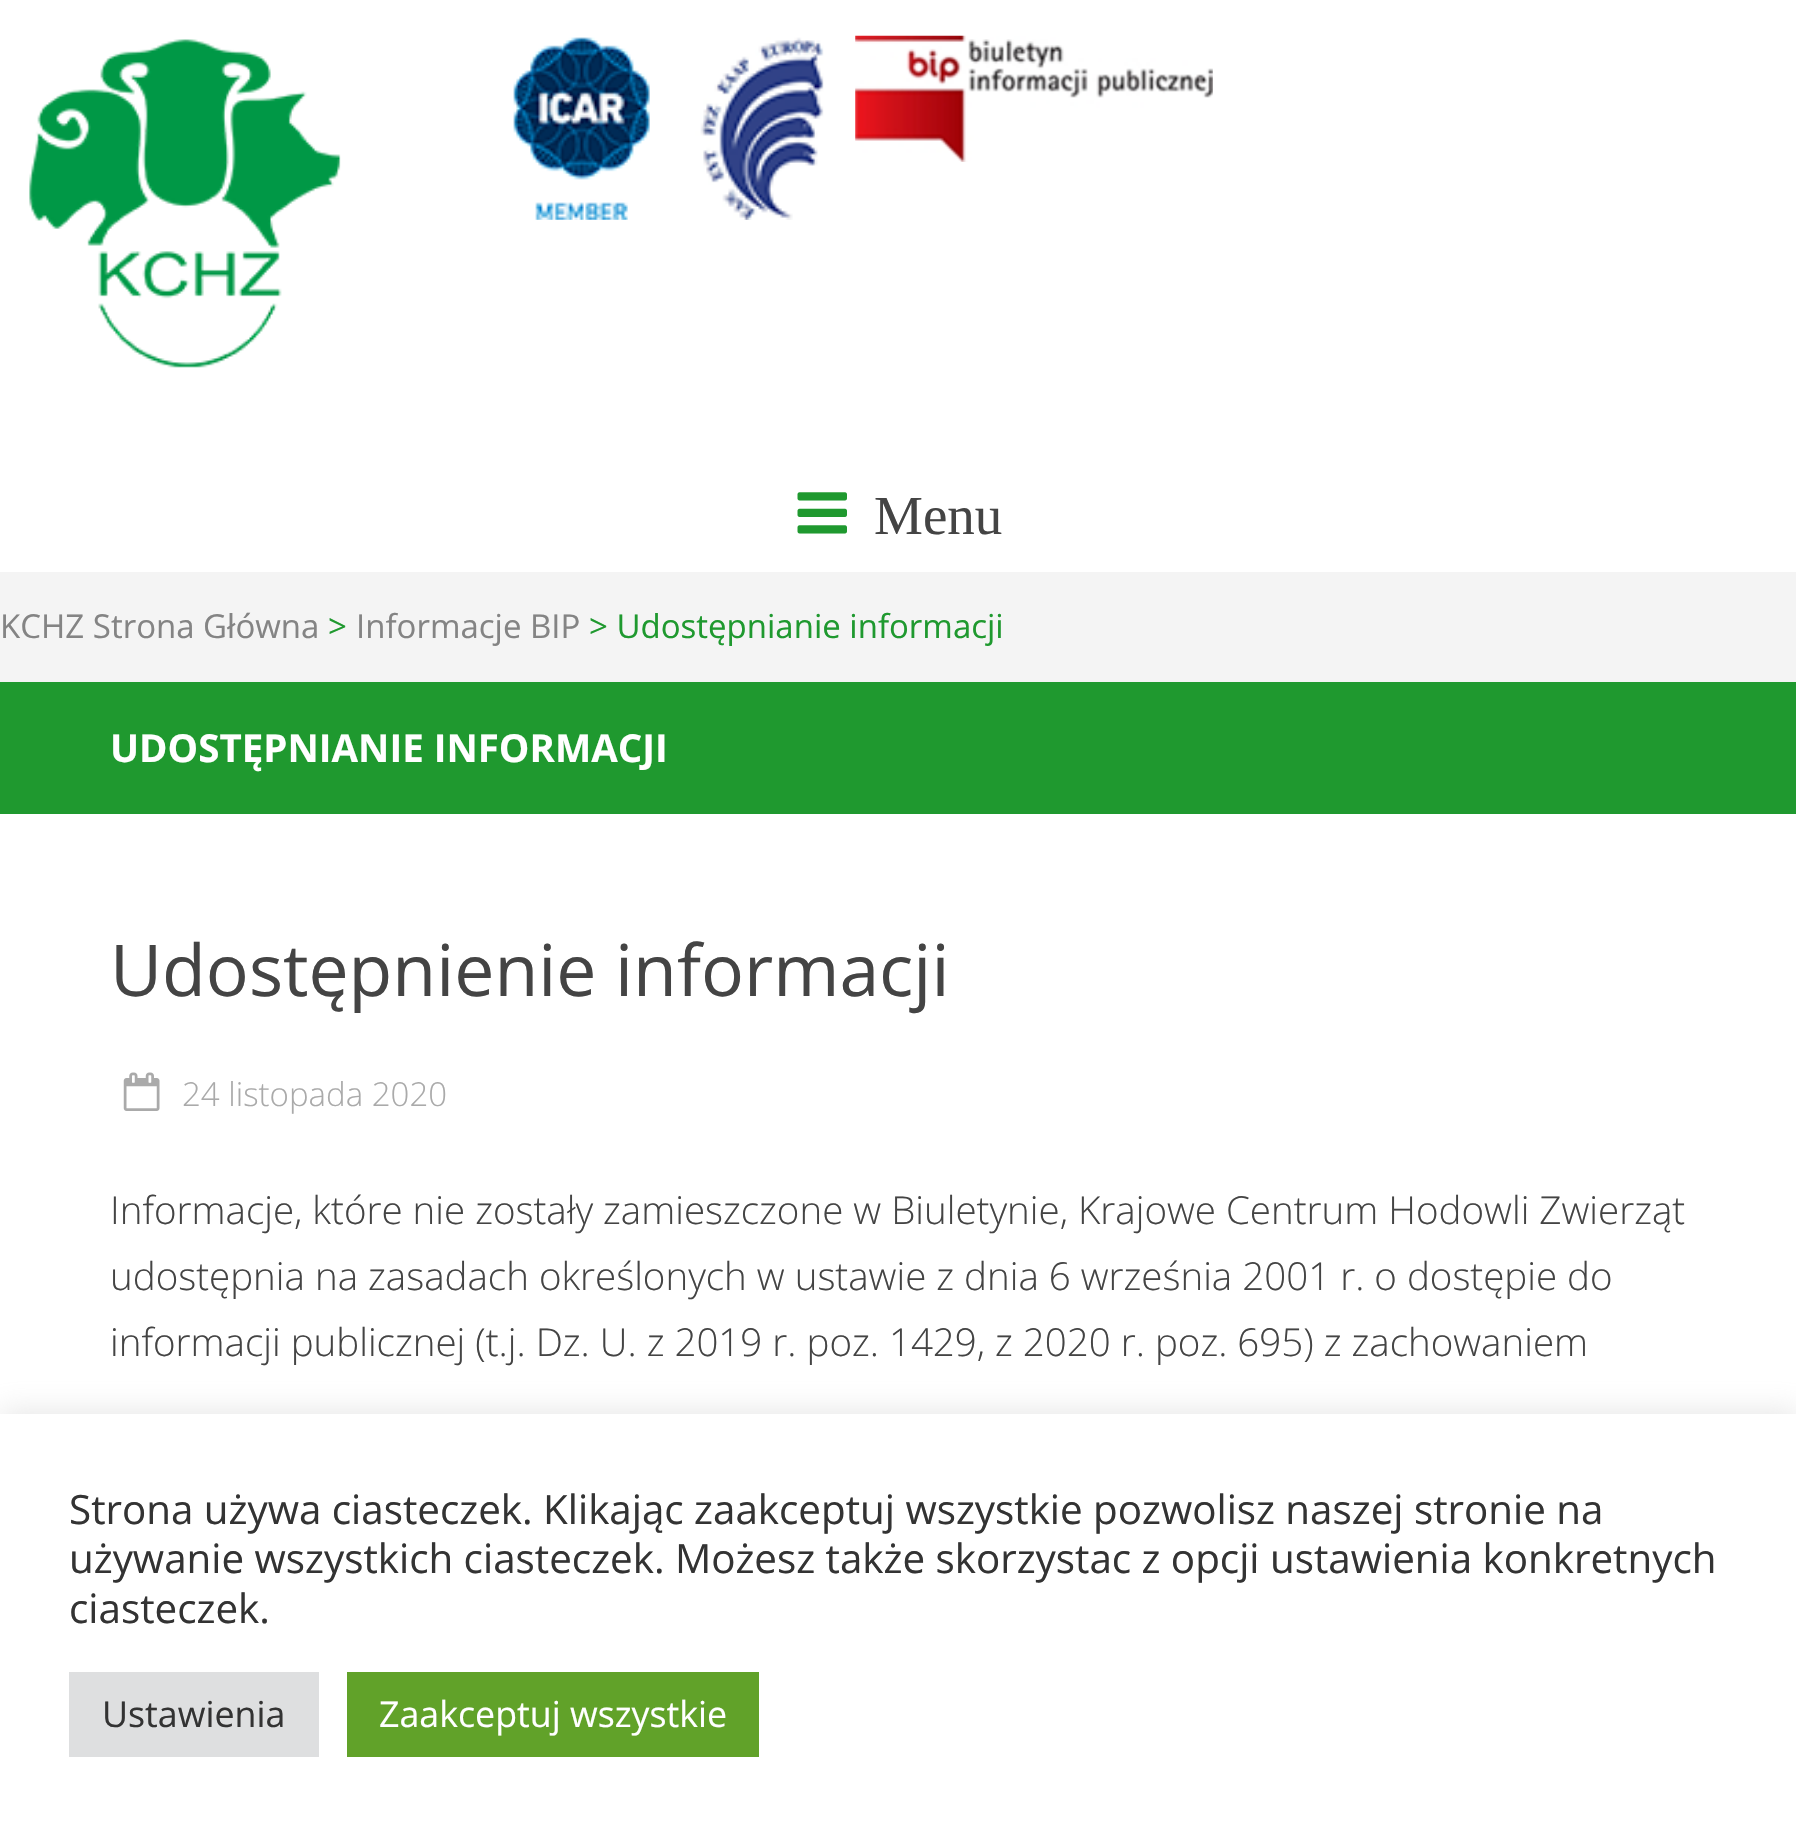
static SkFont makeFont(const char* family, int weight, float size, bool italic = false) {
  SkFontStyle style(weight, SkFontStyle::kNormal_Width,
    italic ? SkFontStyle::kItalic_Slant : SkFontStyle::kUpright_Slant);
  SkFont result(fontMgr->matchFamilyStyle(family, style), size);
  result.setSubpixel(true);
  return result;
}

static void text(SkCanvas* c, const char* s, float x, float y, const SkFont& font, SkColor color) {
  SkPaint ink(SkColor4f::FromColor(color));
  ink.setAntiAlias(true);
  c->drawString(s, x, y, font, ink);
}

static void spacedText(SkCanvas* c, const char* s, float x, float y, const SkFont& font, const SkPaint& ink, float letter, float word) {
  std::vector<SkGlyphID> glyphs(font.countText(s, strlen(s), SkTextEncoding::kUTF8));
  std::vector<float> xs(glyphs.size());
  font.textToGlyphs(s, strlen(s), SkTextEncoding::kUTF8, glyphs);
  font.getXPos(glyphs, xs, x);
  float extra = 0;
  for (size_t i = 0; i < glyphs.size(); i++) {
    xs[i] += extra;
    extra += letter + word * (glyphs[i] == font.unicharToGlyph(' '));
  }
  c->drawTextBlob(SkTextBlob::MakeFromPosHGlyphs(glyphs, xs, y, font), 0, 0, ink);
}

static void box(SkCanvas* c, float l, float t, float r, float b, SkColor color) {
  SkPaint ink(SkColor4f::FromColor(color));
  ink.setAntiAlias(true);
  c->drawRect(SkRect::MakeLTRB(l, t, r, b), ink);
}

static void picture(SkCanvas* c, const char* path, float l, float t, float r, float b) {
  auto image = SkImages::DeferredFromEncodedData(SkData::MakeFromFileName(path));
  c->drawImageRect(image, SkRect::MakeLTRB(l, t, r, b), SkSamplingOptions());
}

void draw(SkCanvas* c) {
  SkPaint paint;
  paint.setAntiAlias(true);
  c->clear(0xfff4f4f4);
  box(c, 0, 0, 1796, 572, 0xffffffff);
  picture(c, "img_01.png", 29, 39, 341, 368);
  picture(c, "img_02.png", 513, 37, 824, 220);
  picture(c, "img_03.png", 855, 35, 1213, 162);
  picture(c, "img_04.png", 797, 492, 847, 534);
  SkFont face1 = makeFont("Liberation Serif", 400, 55);
  text(c, "Menu", 874, 534, face1, 0xff444444);
  SkFont face2 = makeFont("Open Sans", 400, 33);
  text(c, "KCHZ Strona Główna", 0, 638, face2, 0xff848484);
  text(c, ">", 328, 638, face2, 0xff1f992f);
  text(c, "Informacje BIP", 356, 638, face2, 0xff848484);
  text(c, "> Udostępnianie informacji", 589, 638, face2, 0xff1f992f);
  box(c, 0, 814, 1796, 1414, 0xffffffff);
  box(c, 0, 682, 1796, 814, 0xff1f992f);
  SkFont face3 = makeFont("Open Sans", 700, 38.5f);
  text(c, "UDOSTĘPNIANIE INFORMACJI", 110, 762, face3, 0xffffffff);
  SkFont face4 = makeFont("Open Sans", 400, 71.5f);
  text(c, "Udostępnienie informacji", 110, 996, face4, 0xff444444);
  picture(c, "img_05.png", 123, 1072, 160, 1111);
  SkFont face5 = makeFont("Open Sans", 300, 33);
  text(c, "24 listopada 2020", 182, 1106, face5, 0xffaaaaaa);
  SkFont face6 = makeFont("Open Sans", 300, 38.5f);
  text(c, "Informacje, które nie zostały zamieszczone w Biuletynie, Krajowe Centrum Hodowli Zwierząt", 110, 1224, face6, 0xff444444);
  text(c, "udostępnia na zasadach określonych w ustawie z dnia 6 września 2001 r. o dostępie do", 110, 1290, face6, 0xff444444);
  text(c, "informacji publicznej (t.j. Dz. U. z 2019 r. poz. 1429, z 2020 r. poz. 695) z zachowaniem", 110, 1356, face6, 0xff444444);
  paint.setColor(0x4dacabab);
  paint.setMaskFilter(SkMaskFilter::MakeBlur(kNormal_SkBlurStyle, 14));
  c->drawRect(SkRect::MakeLTRB(0, 1411, 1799, 1837), paint);
  paint.setMaskFilter(nullptr);
  box(c, 0, 1414, 1796, 1839, 0xffffffff);
  SkFont face7 = makeFont("Open Sans", 400, 40.35f);
  paint.setColor(0xff333333);
  spacedText(c, "Strona używa ciasteczek. Klikając zaakceptuj wszystkie pozwolisz naszej stronie na", 69, 1524, face7, paint, 0, -0.1f);
  spacedText(c, "używanie wszystkich ciasteczek. Możesz także skorzystac z opcji ustawienia konkretnych", 69, 1573, face7, paint, 0, -0.1f);
  text(c, "ciasteczek.", 69, 1623, face7, 0xff333333);
  box(c, 69, 1672, 319, 1757, 0xffdedfe0);
  SkFont face8 = makeFont("Open Sans", 400, 35.75f);
  text(c, "Ustawienia", 102, 1727, face8, 0xff333333);
  box(c, 347, 1672, 759, 1757, 0xff61a229);
  text(c, "Zaakceptuj wszystkie", 379, 1727, face8, 0xffffffff);
}
